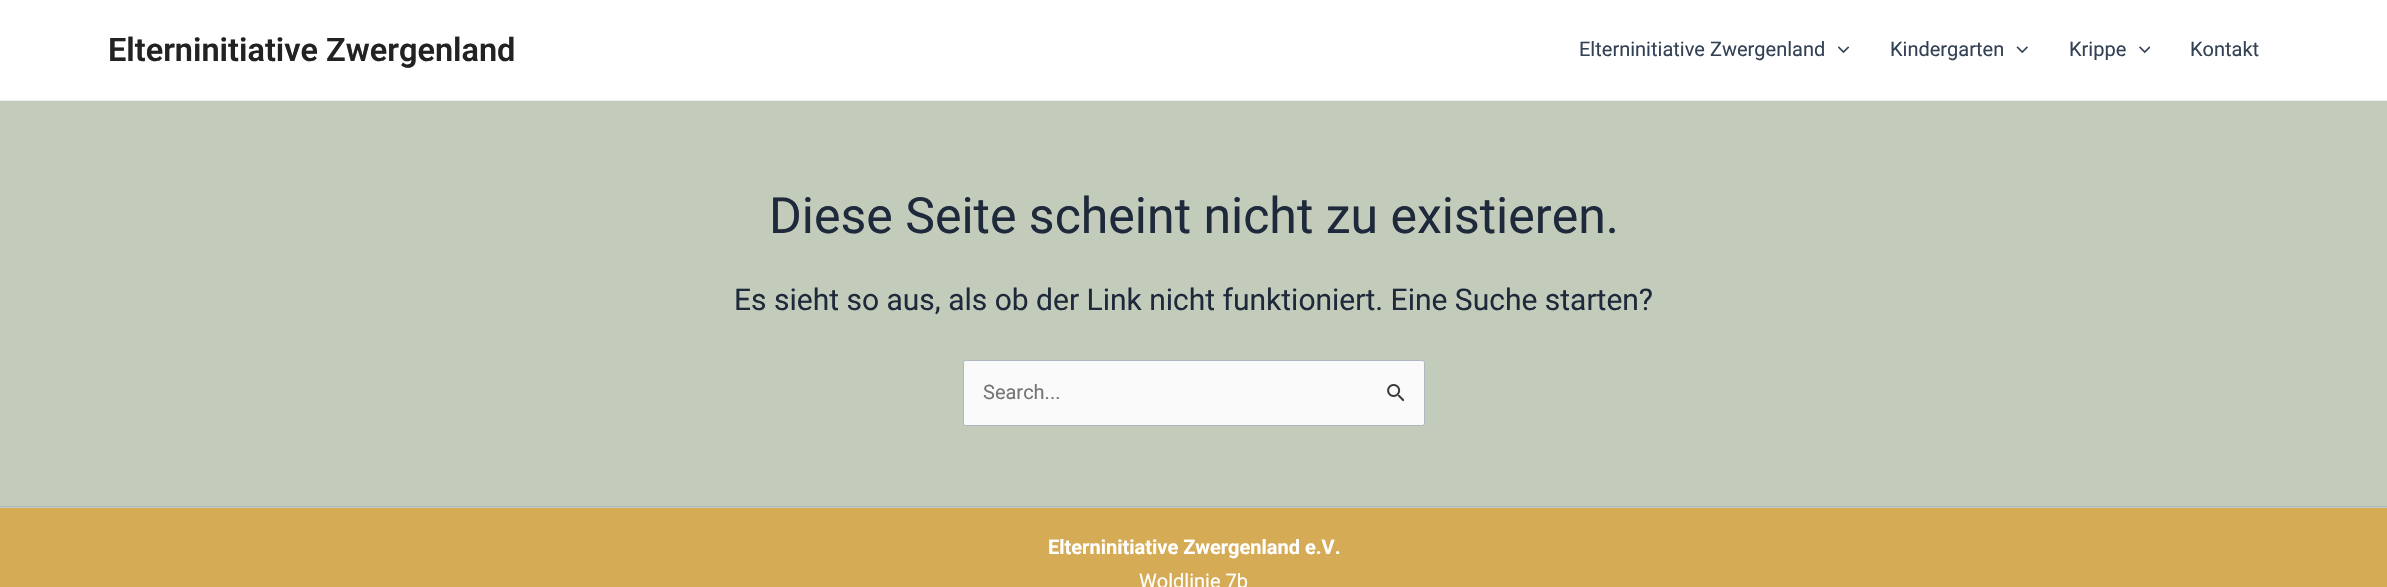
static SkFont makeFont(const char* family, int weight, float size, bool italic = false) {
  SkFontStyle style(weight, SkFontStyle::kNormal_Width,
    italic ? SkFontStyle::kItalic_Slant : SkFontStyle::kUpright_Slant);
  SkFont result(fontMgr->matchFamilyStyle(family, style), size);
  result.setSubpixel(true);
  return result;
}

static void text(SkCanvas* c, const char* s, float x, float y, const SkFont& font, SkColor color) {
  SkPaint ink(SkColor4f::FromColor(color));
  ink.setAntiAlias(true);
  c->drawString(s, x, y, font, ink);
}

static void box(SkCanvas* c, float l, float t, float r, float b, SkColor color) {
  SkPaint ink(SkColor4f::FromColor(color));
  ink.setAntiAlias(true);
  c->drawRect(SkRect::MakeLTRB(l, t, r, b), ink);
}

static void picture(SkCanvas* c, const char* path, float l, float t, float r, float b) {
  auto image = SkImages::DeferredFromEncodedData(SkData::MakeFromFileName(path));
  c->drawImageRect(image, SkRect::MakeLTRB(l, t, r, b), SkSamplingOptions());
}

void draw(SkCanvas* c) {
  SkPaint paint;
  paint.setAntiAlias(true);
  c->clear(0xffc3ccba);
  box(c, 0, 0, 2387, 100, 0xffffffff);
  box(c, 0, 100, 2387, 101, 0xffeaeaea);
  SkFont face1 = makeFont("Roboto", 600, 32.5f);
  text(c, "Elterninitiative Zwergenland", 108, 61, face1, 0xff222222);
  SkFont face2 = makeFont("Roboto", 400, 20);
  text(c, "Elterninitiative Zwergenland", 1579, 56, face2, 0xff334155);
  picture(c, "img_01.png", 1838, 46, 1850, 54);
  text(c, "Kindergarten", 1890, 56, face2, 0xff334155);
  picture(c, "img_02.png", 2016, 46, 2028, 54);
  text(c, "Krippe", 2069, 56, face2, 0xff334155);
  picture(c, "img_03.png", 2139, 46, 2150, 54);
  text(c, "Kontakt", 2190, 56, face2, 0xff334155);
  SkFont face3 = makeFont("Roboto", 400, 50);
  text(c, "Diese Seite scheint nicht zu existieren.", 769, 233, face3, 0xff1e293b);
  SkFont face4 = makeFont("Roboto", 400, 30);
  text(c, "Es sieht so aus, als ob der Link nicht funktioniert. Eine Suche starten?", 734, 310, face4, 0xff1e293b);
  paint.setColor(0xfffafafa);
  c->drawRoundRect(SkRect::MakeLTRB(963.5f, 360.5f, 1424.5f, 425.5f), 2, 2, paint);
  paint.setStyle(SkPaint::kStroke_Style);
  paint.setStrokeWidth(1);
  paint.setColor(0xffadb6be);
  c->drawRoundRect(SkRect::MakeLTRB(963.5f, 360.5f, 1424.5f, 425.5f), 2, 2, paint);
  text(c, "Search...", 983, 399, face2, 0xff757575);
  picture(c, "img_04.png", 1387, 384, 1404, 402);
  box(c, 0, 508, 2387, 587, 0xffd6ab55);
  box(c, 0, 506, 2387, 507, 0xffadb6be);
  SkFont face5 = makeFont("Roboto", 700, 20);
  text(c, "Elterninitiative Zwergenland e.V.", 1048, 554, face5, 0xffffffff);
  text(c, "Woldlinie 7b", 1139, 588, face2, 0xffffffff);
}
